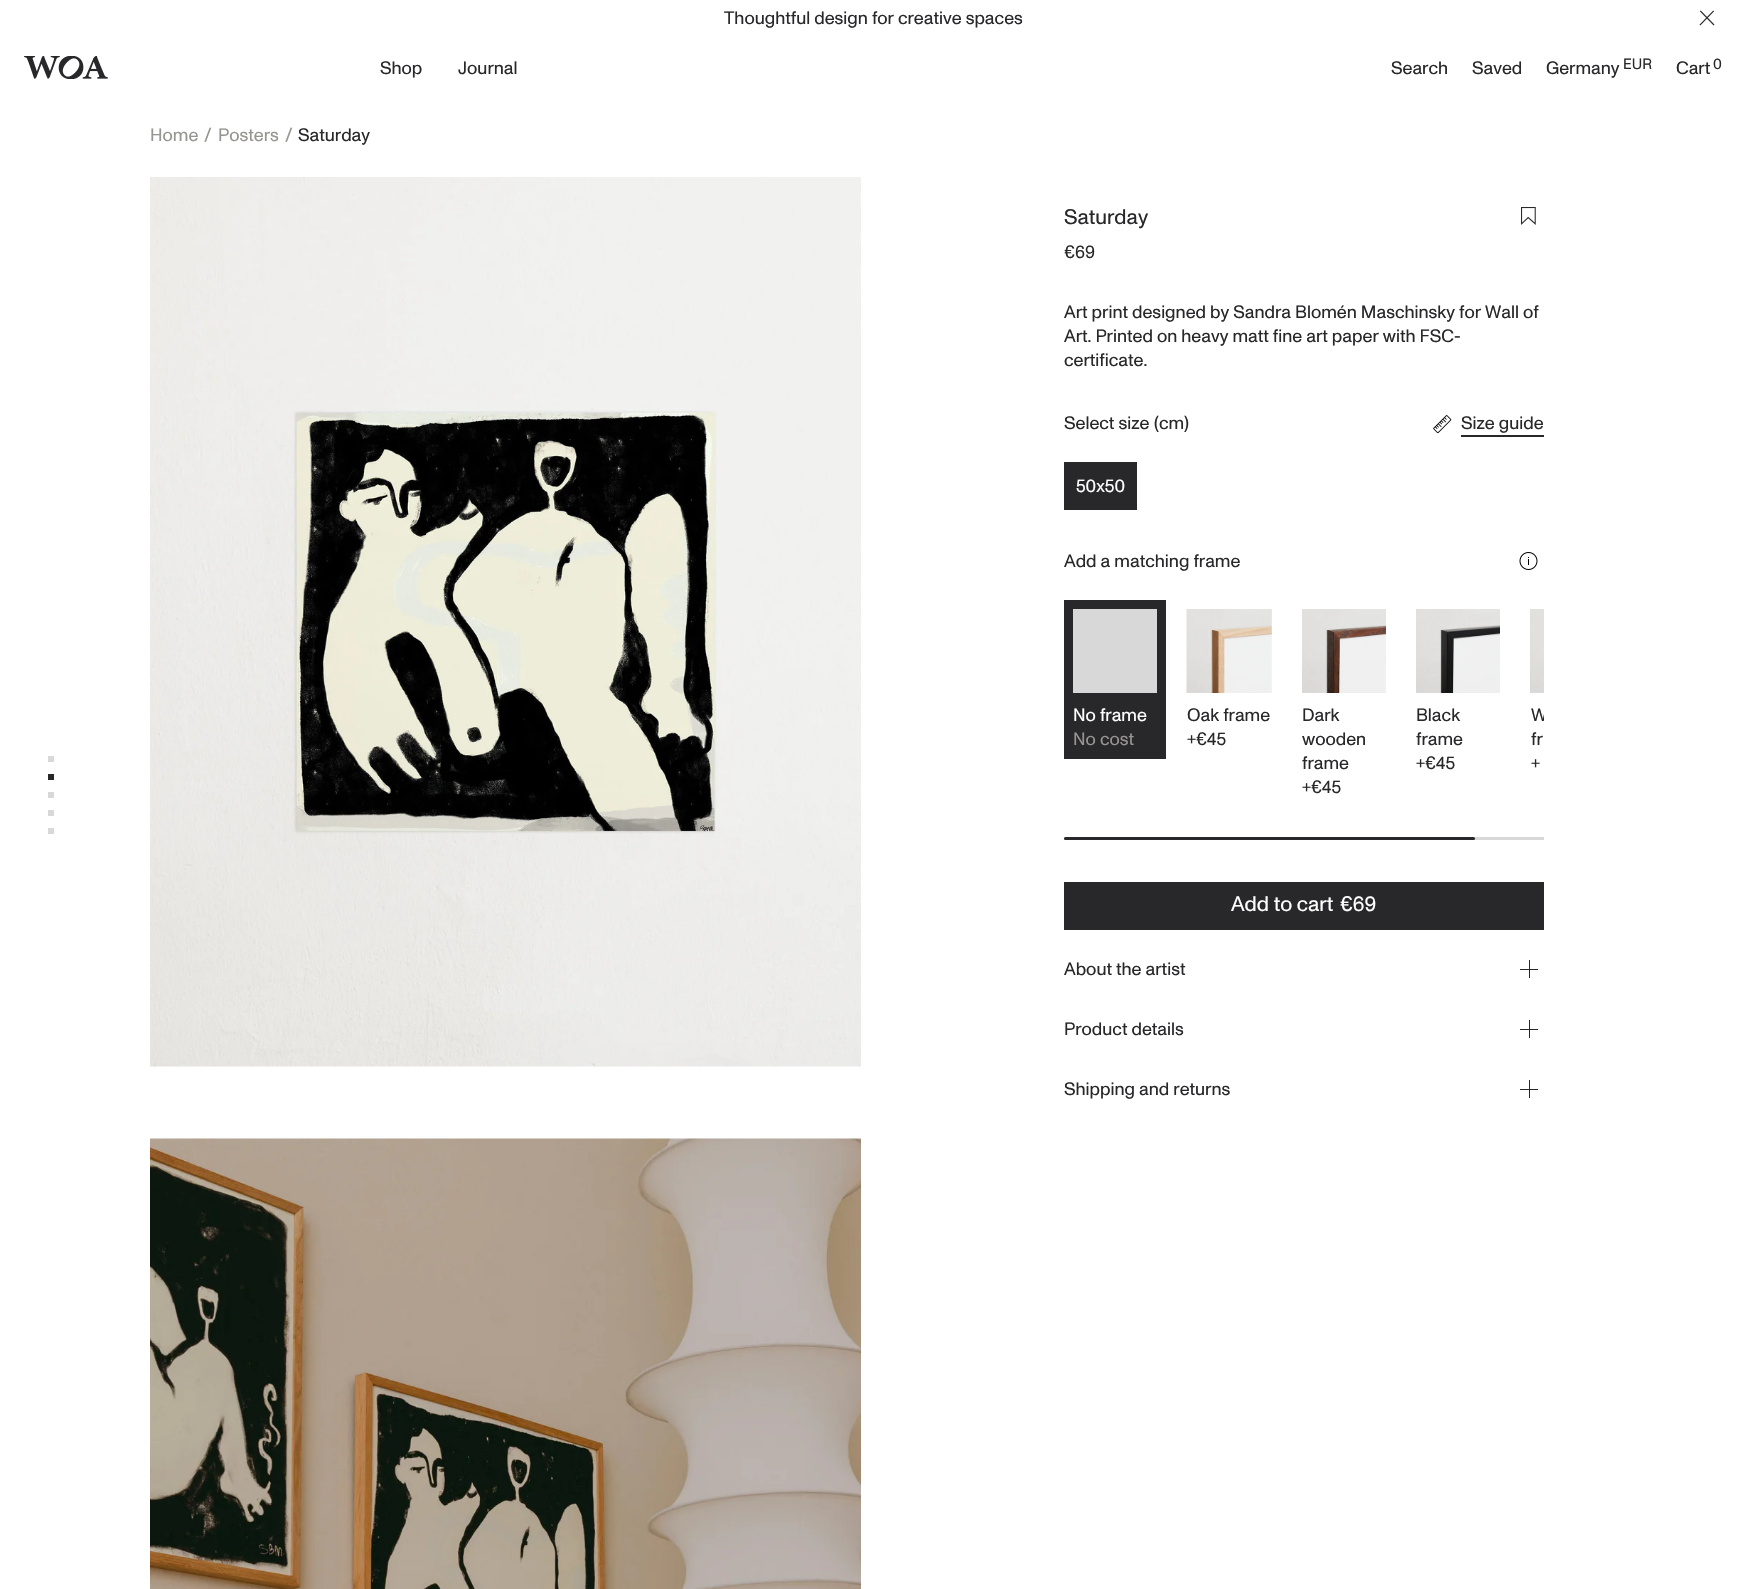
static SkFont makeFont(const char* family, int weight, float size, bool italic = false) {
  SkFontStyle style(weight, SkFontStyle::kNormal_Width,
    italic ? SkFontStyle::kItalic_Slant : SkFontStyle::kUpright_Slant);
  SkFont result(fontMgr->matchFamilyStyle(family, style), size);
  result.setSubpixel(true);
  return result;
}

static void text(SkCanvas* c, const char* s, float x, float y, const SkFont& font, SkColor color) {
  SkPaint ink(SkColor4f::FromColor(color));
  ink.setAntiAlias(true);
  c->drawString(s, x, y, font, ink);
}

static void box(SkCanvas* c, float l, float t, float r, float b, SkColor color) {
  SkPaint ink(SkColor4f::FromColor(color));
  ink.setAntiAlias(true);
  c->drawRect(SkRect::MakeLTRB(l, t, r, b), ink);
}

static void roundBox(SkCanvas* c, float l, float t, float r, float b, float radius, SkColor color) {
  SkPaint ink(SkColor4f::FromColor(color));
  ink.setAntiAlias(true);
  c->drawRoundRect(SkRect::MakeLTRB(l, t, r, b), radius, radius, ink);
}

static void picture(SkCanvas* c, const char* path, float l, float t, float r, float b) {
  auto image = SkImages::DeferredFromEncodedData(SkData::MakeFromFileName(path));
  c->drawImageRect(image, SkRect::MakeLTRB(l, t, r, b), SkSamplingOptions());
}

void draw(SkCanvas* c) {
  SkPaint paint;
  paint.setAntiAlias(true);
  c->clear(0xffffffff);
  SkFont face1 = makeFont("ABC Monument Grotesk", 400, 18);
  text(c, "Thoughtful design for creative spaces", 724, 24, face1, 0xff28272a);
  picture(c, "img_01.png", 1699, 10, 1715, 26);
  picture(c, "img_02.png", 24, 56, 108, 79);
  text(c, "Shop", 380, 74, face1, 0xff28272a);
  text(c, "Journal", 458, 74, face1, 0xff28272a);
  text(c, "Search", 1391, 74, face1, 0xff28272a);
  text(c, "Saved", 1472, 74, face1, 0xff28272a);
  text(c, "Germany", 1546, 74, face1, 0xff28272a);
  SkFont face2 = makeFont("ABC Monument Grotesk", 400, 15);
  text(c, "EUR", 1623, 69, face2, 0xff28272a);
  text(c, "Cart", 1676, 74, face1, 0xff28272a);
  text(c, "0", 1713, 69, face2, 0xff28272a);
  text(c, "Home", 150, 141, face1, 0xff979590);
  text(c, "/", 204, 141, face1, 0xff979590);
  text(c, "Posters", 218, 141, face1, 0xff979590);
  text(c, "/", 285, 141, face1, 0xff979590);
  text(c, "Saturday", 298, 141, face1, 0xff28272a);
  box(c, 48, 756, 54, 762, 0xffd8d8d8);
  box(c, 48, 774, 54, 780, 0xff28272a);
  box(c, 48, 792, 54, 798, 0xffd8d8d8);
  box(c, 48, 810, 54, 816, 0xffd8d8d8);
  box(c, 48, 828, 54, 834, 0xffd8d8d8);
  picture(c, "img_03.png", 150, 177, 861, 1067);
  picture(c, "img_04.png", 150, 1138, 861, 1589);
  SkFont face3 = makeFont("ABC Monument Grotesk", 400, 21);
  text(c, "Saturday", 1064, 224, face3, 0xff28272a);
  picture(c, "img_05.png", 1521, 207, 1536, 225);
  text(c, "€69", 1064, 258, face1, 0xff28272a);
  text(c, "Art print designed by Sandra Blomén Maschinsky for Wall of", 1064, 318, face1, 0xff28272a);
  text(c, "Art. Printed on heavy matt fine art paper with FSC-", 1064, 342, face1, 0xff28272a);
  text(c, "certificate.", 1064, 366, face1, 0xff28272a);
  text(c, "Select size", 1064, 429, face1, 0xff28272a);
  text(c, "(cm)", 1154, 429, face1, 0xff28272a);
  picture(c, "img_06.png", 1433, 415, 1452, 434);
  text(c, "Size guide", 1461, 429, face1, 0xff28272a);
  box(c, 1461, 435, 1544, 437, 0xff28272a);
  box(c, 1064, 462, 1137, 510, 0xff28272a);
  text(c, "50x50", 1076, 492, face1, 0xffffffff);
  text(c, "Add a matching frame", 1064, 567, face1, 0xff28272a);
  picture(c, "img_07.png", 1519, 552, 1538, 570);
  box(c, 1064, 600, 1166, 759, 0xff28272a);
  box(c, 1073, 609, 1157, 693, 0xffd8d8d8);
  text(c, "No frame", 1073, 721, face1, 0xffffffff);
  text(c, "No cost", 1073, 745, face1, 0xff979590);
  picture(c, "img_08.png", 1186, 609, 1272, 693);
  text(c, "Oak frame", 1187, 721, face1, 0xff28272a);
  text(c, "+€45", 1187, 745, face1, 0xff28272a);
  picture(c, "img_09.png", 1302, 609, 1386, 693);
  text(c, "Dark", 1302, 721, face1, 0xff28272a);
  text(c, "wooden", 1302, 745, face1, 0xff28272a);
  text(c, "frame", 1302, 769, face1, 0xff28272a);
  text(c, "+€45", 1302, 793, face1, 0xff28272a);
  picture(c, "img_10.png", 1416, 609, 1500, 693);
  text(c, "Black", 1416, 721, face1, 0xff28272a);
  text(c, "frame", 1416, 745, face1, 0xff28272a);
  text(c, "+€45", 1416, 769, face1, 0xff28272a);
  picture(c, "img_11.png", 1530, 609, 1544, 693);
  c->save();
  c->clipRect(SkRect::MakeLTRB(1064, 600, 1544, 840));
  text(c, "W", 1531, 721, face1, 0xff28272a);
  c->restore();
  text(c, "fr", 1531, 745, face1, 0xff28272a);
  text(c, "+", 1531, 769, face1, 0xff28272a);
  box(c, 1064, 837, 1544, 840, 0xffd8d8d8);
  roundBox(c, 1064, 837, 1475, 840, 1.5f, 0xff28272a);
  box(c, 1064, 882, 1544, 930, 0xff28272a);
  text(c, "Add to cart", 1231, 911, face3, 0xffffffff);
  text(c, "€69", 1340, 911, face3, 0xffffffff);
  text(c, "About the artist", 1064, 975, face1, 0xff28272a);
  box(c, 1529, 960, 1530, 978, 0xff28272a);
  box(c, 1520, 969, 1538, 970, 0xff28272a);
  text(c, "Product details", 1064, 1035, face1, 0xff28272a);
  box(c, 1529, 1020, 1530, 1038, 0xff28272a);
  box(c, 1520, 1029, 1538, 1030, 0xff28272a);
  text(c, "Shipping and returns", 1064, 1095, face1, 0xff28272a);
  box(c, 1529, 1080, 1530, 1098, 0xff28272a);
  box(c, 1520, 1089, 1538, 1090, 0xff28272a);
}
